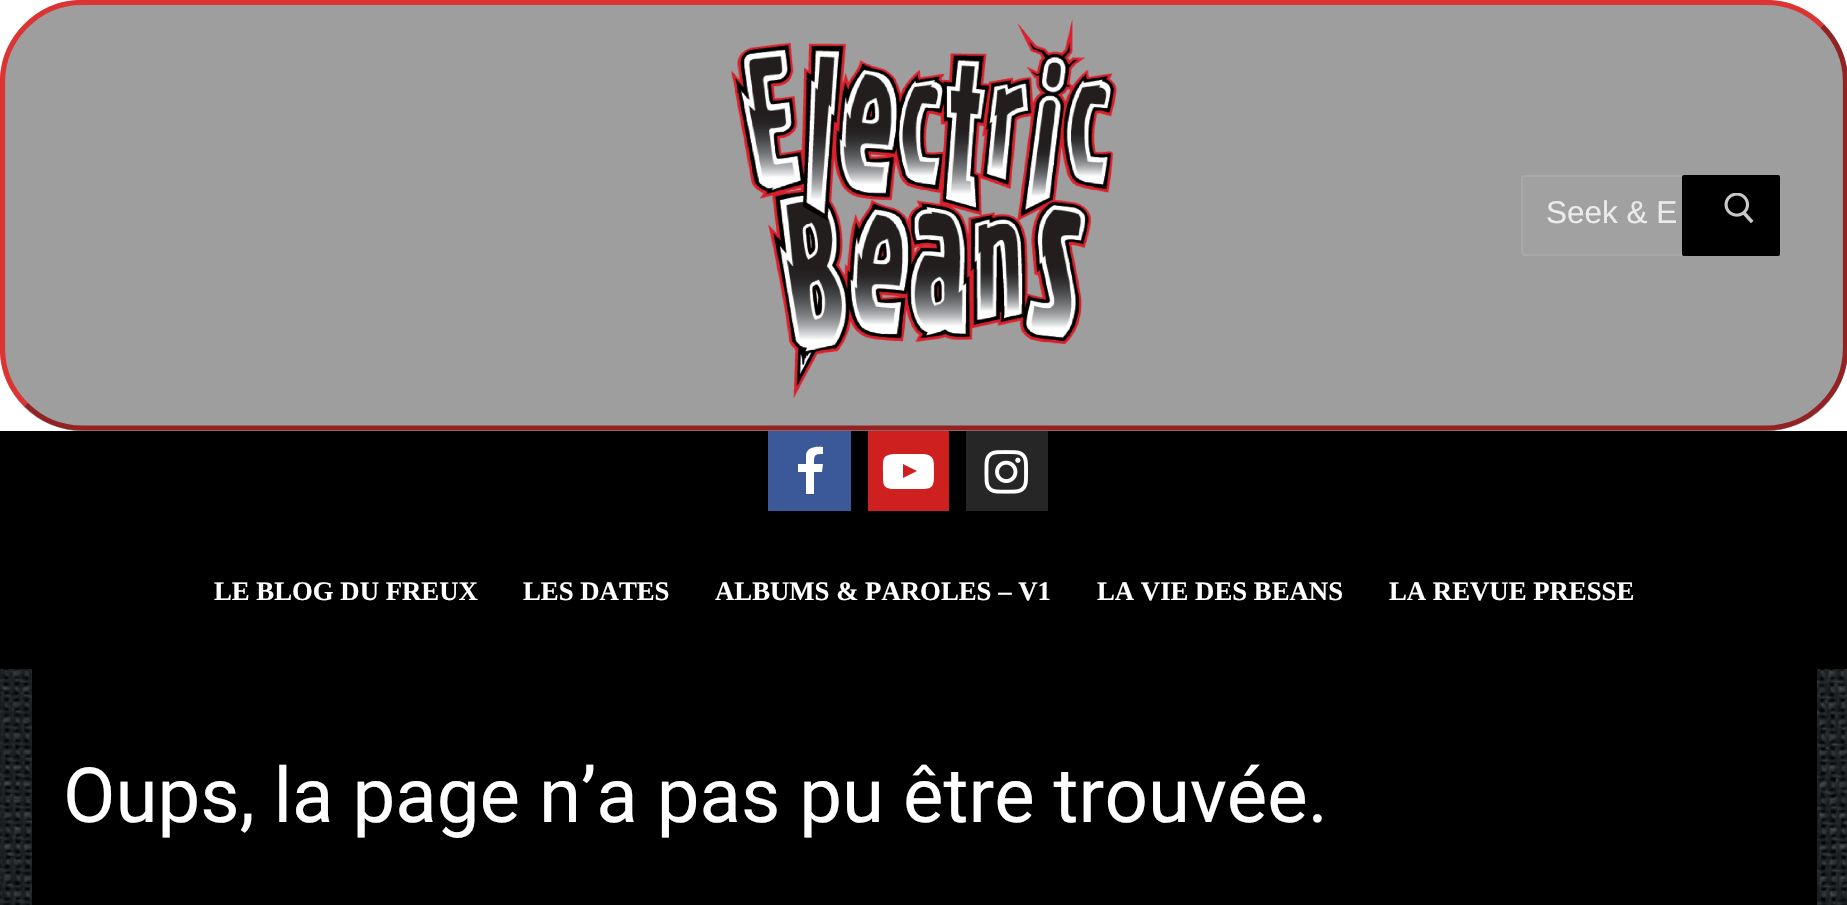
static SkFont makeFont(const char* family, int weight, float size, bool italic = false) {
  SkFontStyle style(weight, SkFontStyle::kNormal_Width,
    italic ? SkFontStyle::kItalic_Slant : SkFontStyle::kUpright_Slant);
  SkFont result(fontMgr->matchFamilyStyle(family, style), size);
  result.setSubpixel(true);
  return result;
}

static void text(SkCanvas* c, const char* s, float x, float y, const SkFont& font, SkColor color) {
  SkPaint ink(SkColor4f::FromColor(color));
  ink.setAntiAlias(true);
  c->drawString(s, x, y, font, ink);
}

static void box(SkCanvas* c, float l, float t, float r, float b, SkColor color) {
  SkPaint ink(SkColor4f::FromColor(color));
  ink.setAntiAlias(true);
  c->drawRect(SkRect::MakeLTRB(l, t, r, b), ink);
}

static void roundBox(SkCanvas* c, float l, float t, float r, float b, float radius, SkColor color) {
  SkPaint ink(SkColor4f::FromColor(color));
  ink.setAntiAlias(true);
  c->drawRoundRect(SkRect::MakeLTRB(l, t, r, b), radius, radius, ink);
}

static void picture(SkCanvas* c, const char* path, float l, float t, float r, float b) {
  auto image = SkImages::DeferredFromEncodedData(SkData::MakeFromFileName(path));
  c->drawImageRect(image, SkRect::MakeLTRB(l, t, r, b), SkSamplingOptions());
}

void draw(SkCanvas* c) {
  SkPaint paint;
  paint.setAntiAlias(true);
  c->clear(0xffffffff);
  roundBox(c, 0, 0, 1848, 431, 82, 0xff9e9e9e);
  picture(c, "img_01.png", 731, 19, 1117, 398);
  paint.setStyle(SkPaint::kStroke_Style);
  paint.setStrokeWidth(5.2f);
  paint.setColor(0xff932222);
  c->drawPath(SkPathBuilder().moveTo(1822, 26).cubicTo(1837, 41, 1845.5f, 61, 1845.5f, 82).lineTo(1845.5f, 348).cubicTo(1845.5f, 369.5f, 1837, 389.5f, 1822, 404.5f).cubicTo(1807, 419.5f, 1787, 428, 1766, 428).lineTo(82.5f, 428).cubicTo(61, 428, 41, 419.5f, 26, 404.5f).detach(), paint);
  paint.setColor(0xffdd3333);
  c->drawPath(SkPathBuilder().moveTo(26, 404.5f).cubicTo(11, 389.5f, 2.5f, 369.5f, 2.5f, 348.5f).lineTo(2.5f, 82.5f).cubicTo(2.5f, 61, 11, 41, 26, 26).cubicTo(41, 11, 61, 2.5f, 82, 2.5f).lineTo(1766, 2.5f).cubicTo(1787, 2.5f, 1807, 11, 1822, 26).detach(), paint);
  paint.setStyle(SkPaint::kFill_Style);
  paint.setColor(0xffa1a1a1);
  c->drawRoundRect(SkRect::MakeLTRB(1522, 176, 1751, 255), 3, 3, paint);
  paint.setStyle(SkPaint::kStroke_Style);
  paint.setStrokeWidth(2);
  paint.setColor(0xffa9a9a9);
  c->drawRoundRect(SkRect::MakeLTRB(1522, 176, 1751, 255), 3, 3, paint);
  SkFont face1 = makeFont("Liberation Sans", 400, 31.5f);
  text(c, "Seek & E", 1546, 223, face1, 0xffebebeb);
  roundBox(c, 1682, 175, 1780, 256, 2, 0xff000000);
  picture(c, "img_02.png", 1724, 193, 1754, 224);
  box(c, 0, 431, 1847, 669, 0xff000000);
  box(c, 768, 431, 851, 511, 0xff3b5998);
  paint.setStyle(SkPaint::kFill_Style);
  paint.setColor(0xffffffff);
  c->drawPath(SkPathBuilder().moveTo(823, 447).lineTo(823, 454).cubicTo(814, 454, 814, 455, 814, 464).lineTo(823, 464).lineTo(822, 472).lineTo(814, 472).lineTo(814, 494).lineTo(806, 494).lineTo(806, 472).lineTo(798, 472).lineTo(798, 464).lineTo(806, 464).lineTo(806, 455).cubicTo(807, 447, 816, 446, 823, 447).close().detach(), paint);
  box(c, 868, 431, 949, 511, 0xffcd201f);
  c->drawPath(SkPathBuilder().moveTo(903, 478).lineTo(917, 471).lineTo(903, 464).close().moveTo(908, 454).lineTo(923, 454).cubicTo(935, 455, 934, 461, 934, 472).cubicTo(934, 485, 934, 489, 922, 489).lineTo(894, 489).cubicTo(882, 489, 883, 483, 883, 472).cubicTo(883, 459, 882, 455, 894, 454).close().detach(), paint);
  box(c, 966, 431, 1048, 511, 0xff262626);
  picture(c, "img_03.png", 984, 450, 1028, 494);
  SkFont face2 = makeFont("Liberation Serif", 700, 26.75f);
  text(c, "LE BLOG DU FREUX", 214, 600, face2, 0xffffffff);
  text(c, "LES DATES", 523, 600, face2, 0xffffffff);
  text(c, "ALBUMS & PAROLES – V1", 715, 600, face2, 0xffffffff);
  text(c, "LA VIE DES BEANS", 1097, 600, face2, 0xffffffff);
  text(c, "LA REVUE PRESSE", 1389, 600, face2, 0xffffffff);
  picture(c, "img_04.png", 0, 669, 1847, 905);
  box(c, 32, 669, 1817, 905, 0xff000000);
  SkFont face3 = makeFont("Roboto", 400, 76.25f);
  text(c, "Oups, la page n’a pas pu être trouvée.", 63, 822, face3, 0xffffffff);
}
